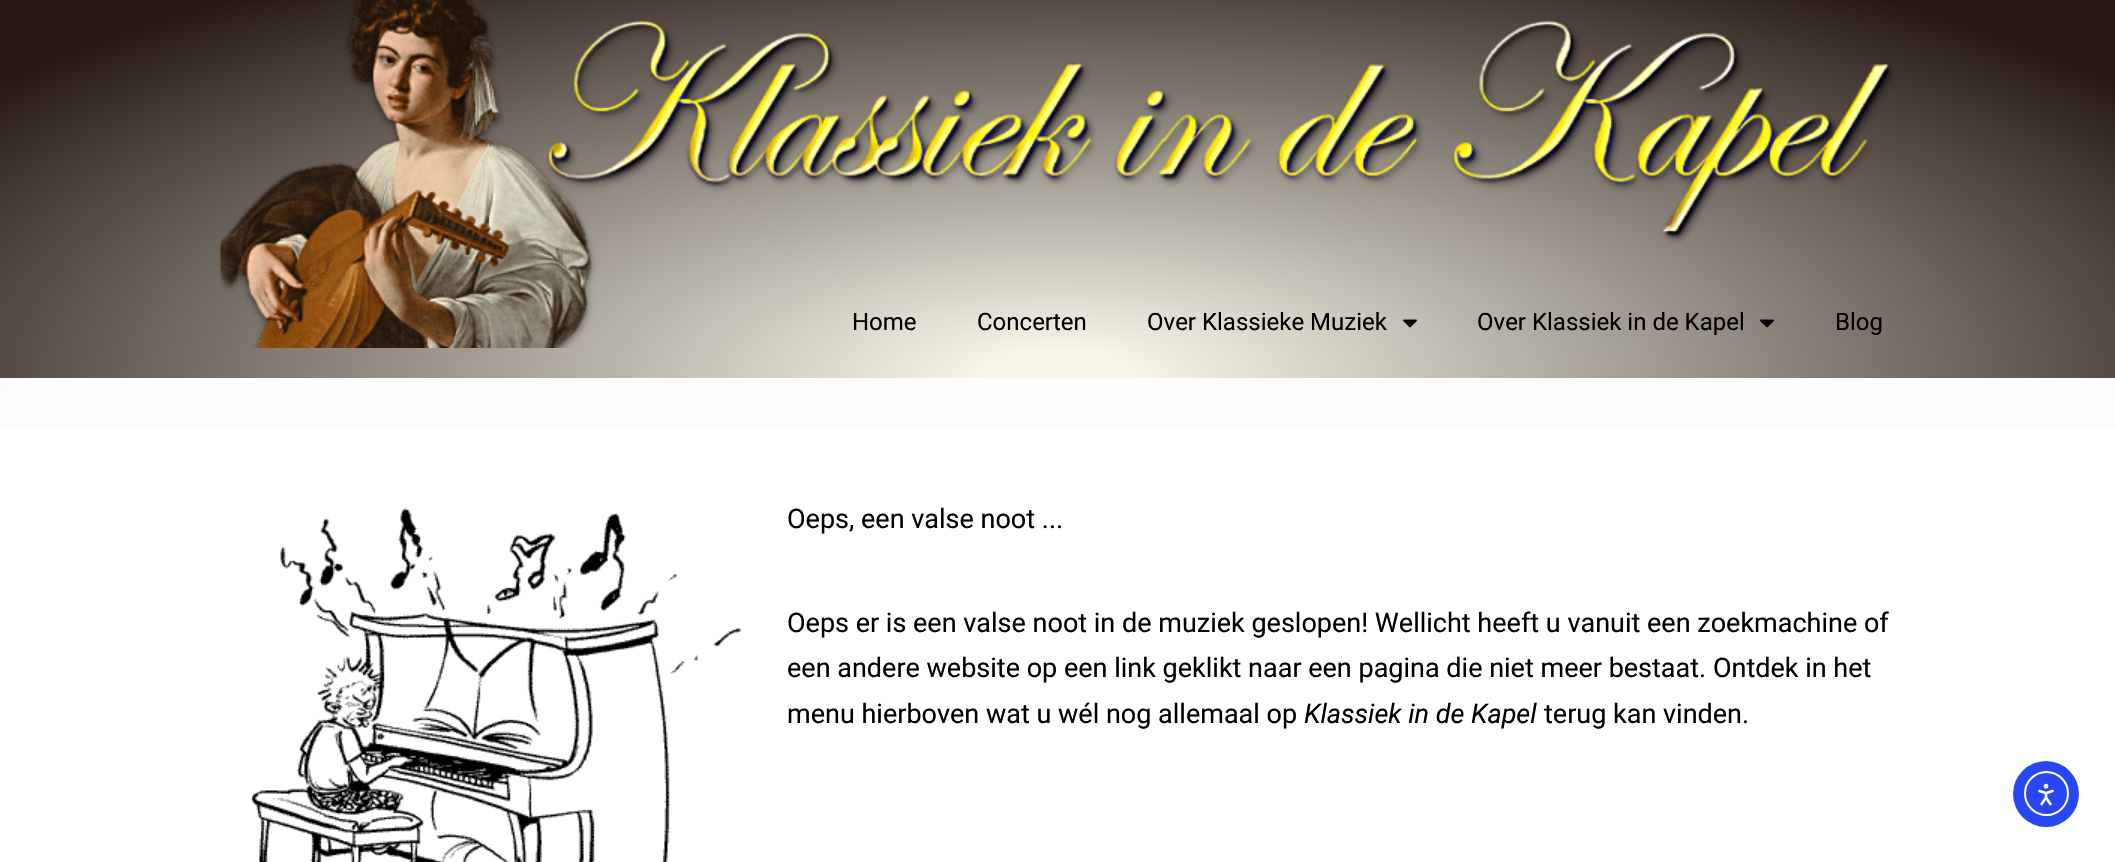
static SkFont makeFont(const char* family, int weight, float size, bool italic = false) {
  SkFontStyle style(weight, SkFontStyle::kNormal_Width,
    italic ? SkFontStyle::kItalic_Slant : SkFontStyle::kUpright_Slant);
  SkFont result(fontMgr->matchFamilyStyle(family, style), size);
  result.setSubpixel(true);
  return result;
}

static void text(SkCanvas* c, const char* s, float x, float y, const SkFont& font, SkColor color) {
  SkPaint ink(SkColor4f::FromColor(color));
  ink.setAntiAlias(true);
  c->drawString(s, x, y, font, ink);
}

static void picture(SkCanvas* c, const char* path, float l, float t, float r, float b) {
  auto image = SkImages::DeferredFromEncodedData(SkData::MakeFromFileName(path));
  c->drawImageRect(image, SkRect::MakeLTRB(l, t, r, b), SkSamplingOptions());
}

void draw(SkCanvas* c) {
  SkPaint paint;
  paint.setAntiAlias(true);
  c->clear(0xffffffff);
  {
    const SkColor colors[] = {0xfffdfdfd, 0xfff6f5e8};
    const float stops[] = {0.75f, 0.95f};
    SkMatrix m = SkMatrix::Translate(1058, 671).preScale(1496, 949);
    paint.setShader(SkGradientShader::MakeRadial({0, 0}, 1, colors, stops, 2, SkTileMode::kClamp, 0, &m));
    paint.setAlpha(255);
  }
  c->drawRect(SkRect::MakeLTRB(0, 378, 2115, 428), paint);
  {
    const SkColor colors[] = {0xfff6f5e8, 0xff261914};
    const float stops[] = {0.05f, 0.9f};
    SkMatrix m = SkMatrix::Translate(1058, 378).preScale(1496, 535);
    paint.setShader(SkGradientShader::MakeRadial({0, 0}, 1, colors, stops, 2, SkTileMode::kClamp, 0, &m));
    paint.setAlpha(255);
  }
  c->drawRect(SkRect::MakeLTRB(0, 0, 2115, 378), paint);
  picture(c, "img_01.png", 220, 0, 1894, 348);
  SkFont face1 = makeFont("Roboto", 400, 24);
  text(c, "Home", 852, 330, face1, 0xff000000);
  text(c, "Concerten", 977, 330, face1, 0xff000000);
  text(c, "Over Klassieke Muziek", 1147, 330, face1, 0xff000000);
  picture(c, "img_02.png", 1403, 319, 1417, 328);
  text(c, "Over Klassiek in de Kapel", 1477, 330, face1, 0xff000000);
  picture(c, "img_03.png", 1760, 319, 1774, 328);
  text(c, "Blog", 1835, 330, face1, 0xff000000);
  picture(c, "img_04.png", 251, 508, 742, 862);
  SkFont face2 = makeFont("Roboto", 400, 27);
  text(c, "Oeps, een valse noot ...", 787, 528, face2, 0xff000000);
  text(c, "Oeps er is een valse noot in de muziek geslopen! Wellicht heeft u vanuit een zoekmachine of", 787, 632, face2, 0xff000000);
  text(c, "een andere website op een link geklikt naar een pagina die niet meer bestaat. Ontdek in het", 787, 677, face2, 0xff000000);
  text(c, "menu hierboven wat u wél nog allemaal op", 787, 723, face2, 0xff000000);
  SkFont face3 = makeFont("Roboto", 400, 27, true);
  text(c, "Klassiek in de Kapel", 1304, 723, face3, 0xff000000);
  text(c, "terug kan vinden.", 1544, 723, face2, 0xff000000);
  paint.setShader(nullptr);
  paint.setColor(0xff2847f3);
  c->drawCircle(2046, 794, 33, paint);
  paint.setStyle(SkPaint::kStroke_Style);
  paint.setStrokeWidth(2);
  paint.setColor(0xffffffff);
  c->drawCircle(2046.5f, 793.5f, 21.5f, paint);
  picture(c, "img_05.png", 2038, 783, 2054, 806);
}
